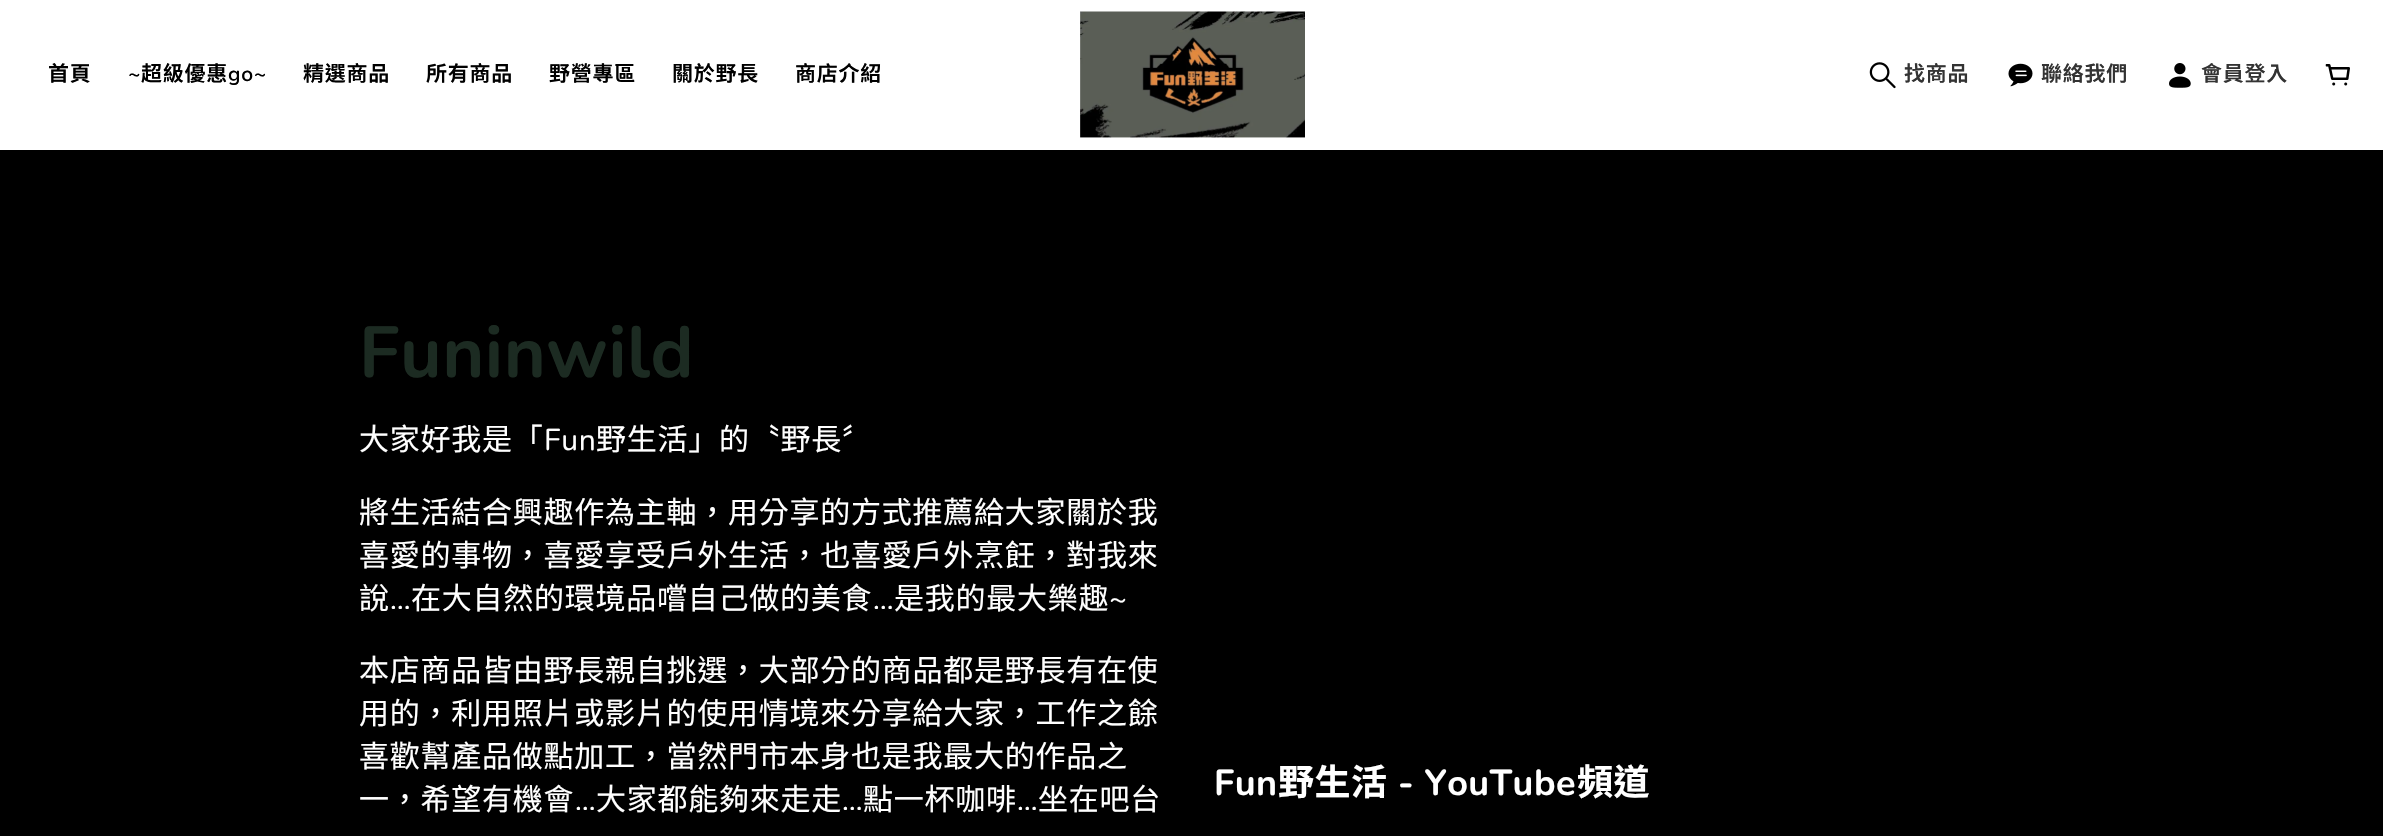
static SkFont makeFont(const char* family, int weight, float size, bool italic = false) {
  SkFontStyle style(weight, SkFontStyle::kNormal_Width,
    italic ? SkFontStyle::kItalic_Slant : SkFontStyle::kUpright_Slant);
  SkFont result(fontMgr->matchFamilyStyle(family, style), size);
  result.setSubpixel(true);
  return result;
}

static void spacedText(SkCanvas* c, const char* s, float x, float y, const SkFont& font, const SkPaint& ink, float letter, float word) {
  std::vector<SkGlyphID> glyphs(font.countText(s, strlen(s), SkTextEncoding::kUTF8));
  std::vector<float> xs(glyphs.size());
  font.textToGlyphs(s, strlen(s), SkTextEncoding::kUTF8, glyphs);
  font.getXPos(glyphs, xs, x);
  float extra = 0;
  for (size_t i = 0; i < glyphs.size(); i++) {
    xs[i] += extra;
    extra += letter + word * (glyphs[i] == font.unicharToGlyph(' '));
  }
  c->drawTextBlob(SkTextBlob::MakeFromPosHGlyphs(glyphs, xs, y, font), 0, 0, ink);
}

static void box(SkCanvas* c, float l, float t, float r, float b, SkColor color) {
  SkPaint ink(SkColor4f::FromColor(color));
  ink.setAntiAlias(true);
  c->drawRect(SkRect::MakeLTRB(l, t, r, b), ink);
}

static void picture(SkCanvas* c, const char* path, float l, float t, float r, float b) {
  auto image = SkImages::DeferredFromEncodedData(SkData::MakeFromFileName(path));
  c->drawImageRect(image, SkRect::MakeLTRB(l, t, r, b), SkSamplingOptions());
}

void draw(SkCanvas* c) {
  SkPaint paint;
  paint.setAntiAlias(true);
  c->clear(0xff000000);
  box(c, 0, 0, 2383, 150, 0xffffffff);
  SkFont face1 = makeFont("Noto Sans TC", 600, 21);
  paint.setColor(0xff000000);
  spacedText(c, "首頁", 48, 81, face1, paint, 0.75f, 0);
  SkFont face2 = makeFont("Nunito", 600, 21);
  spacedText(c, "~", 128, 81, face2, paint, 0.75f, 0);
  spacedText(c, "超級優惠", 141, 81, face1, paint, 0.75f, 0);
  spacedText(c, "go~", 228, 81, face2, paint, 0.75f, 0);
  spacedText(c, "精選商品", 303, 81, face1, paint, 0.75f, 0);
  spacedText(c, "所有商品", 426, 81, face1, paint, 0.75f, 0);
  spacedText(c, "野營專區", 549, 81, face1, paint, 0.75f, 0);
  spacedText(c, "關於野長", 672, 81, face1, paint, 0.75f, 0);
  spacedText(c, "商店介紹", 795, 81, face1, paint, 0.75f, 0);
  picture(c, "img_01.png", 1080, 11, 1305, 138);
  picture(c, "img_02.png", 1869, 62, 1896, 89);
  paint.setColor(0xff333333);
  spacedText(c, "找商品", 1904, 81, face1, paint, 0.75f, 0);
  picture(c, "img_03.png", 2008, 63, 2033, 87);
  spacedText(c, "聯絡我們", 2041, 81, face1, paint, 0.75f, 0);
  picture(c, "img_04.png", 2169, 63, 2191, 88);
  spacedText(c, "會員登入", 2201, 81, face1, paint, 0.75f, 0);
  picture(c, "img_05.png", 2325, 64, 2350, 86);
  SkFont face3 = makeFont("Nunito", 700, 72);
  paint.setColor(0xff1c2b22);
  spacedText(c, "Funinwild", 359, 377, face3, paint, 0.5f, 0);
  SkFont face4 = makeFont("Noto Sans TC", 400, 30);
  paint.setColor(0xffffffff);
  spacedText(c, "大家好我是「", 359, 450, face4, paint, 0.75f, 0);
  SkFont face5 = makeFont("Nunito", 400, 30);
  spacedText(c, "Fun", 544, 450, face5, paint, 0.75f, 0);
  spacedText(c, "野生活」的〝野長〞", 596, 450, face4, paint, 0.75f, 0);
  spacedText(c, "將生活結合興趣作為主軸，用分享的方式推薦給大家關於我", 359, 523, face4, paint, 0.75f, 0);
  spacedText(c, "喜愛的事物，喜愛享受戶外生活，也喜愛戶外烹飪，對我來", 359, 566, face4, paint, 0.75f, 0);
  spacedText(c, "說", 359, 609, face4, paint, 0.75f, 0);
  spacedText(c, "在大自然的環境品嚐自己做的美食", 411, 609, face4, paint, 0.75f, 0);
  spacedText(c, "是我的最大樂趣", 894, 609, face4, paint, 0.75f, 0);
  spacedText(c, "~", 1109, 609, face5, paint, 0.75f, 0);
  spacedText(c, "…", 390, 609, face5, paint, 0.75f, 0);
  spacedText(c, "…", 873, 609, face5, paint, 0.75f, 0);
  spacedText(c, "本店商品皆由野長親自挑選，大部分的商品都是野長有在使", 359, 681, face4, paint, 0.75f, 0);
  spacedText(c, "用的，利用照片或影片的使用情境來分享給大家，工作之餘", 359, 724, face4, paint, 0.75f, 0);
  spacedText(c, "喜歡幫產品做點加工，當然門市本身也是我最大的作品之", 359, 767, face4, paint, 0.75f, 0);
  spacedText(c, "一，希望有機會", 359, 810, face4, paint, 0.75f, 0);
  spacedText(c, "…", 575, 810, face5, paint, 0.75f, 0);
  spacedText(c, "大家都能夠來走走", 596, 810, face4, paint, 0.75f, 0);
  spacedText(c, "…", 842, 810, face5, paint, 0.75f, 0);
  spacedText(c, "點一杯咖啡", 863, 810, face4, paint, 0.75f, 0);
  spacedText(c, "…", 1017, 810, face5, paint, 0.75f, 0);
  spacedText(c, "坐在吧台", 1038, 810, face4, paint, 0.75f, 0);
  SkFont face6 = makeFont("Nunito", 700, 36);
  spacedText(c, "Fun", 1214, 795, face6, paint, 0.5f, 0);
  SkFont face7 = makeFont("Noto Sans TC", 700, 36);
  spacedText(c, "野生活", 1278, 795, face7, paint, 0.5f, 0);
  spacedText(c, "- YouTube", 1398, 795, face6, paint, 0.5f, 0);
  spacedText(c, "頻道", 1577, 795, face7, paint, 0.5f, 0);
}
